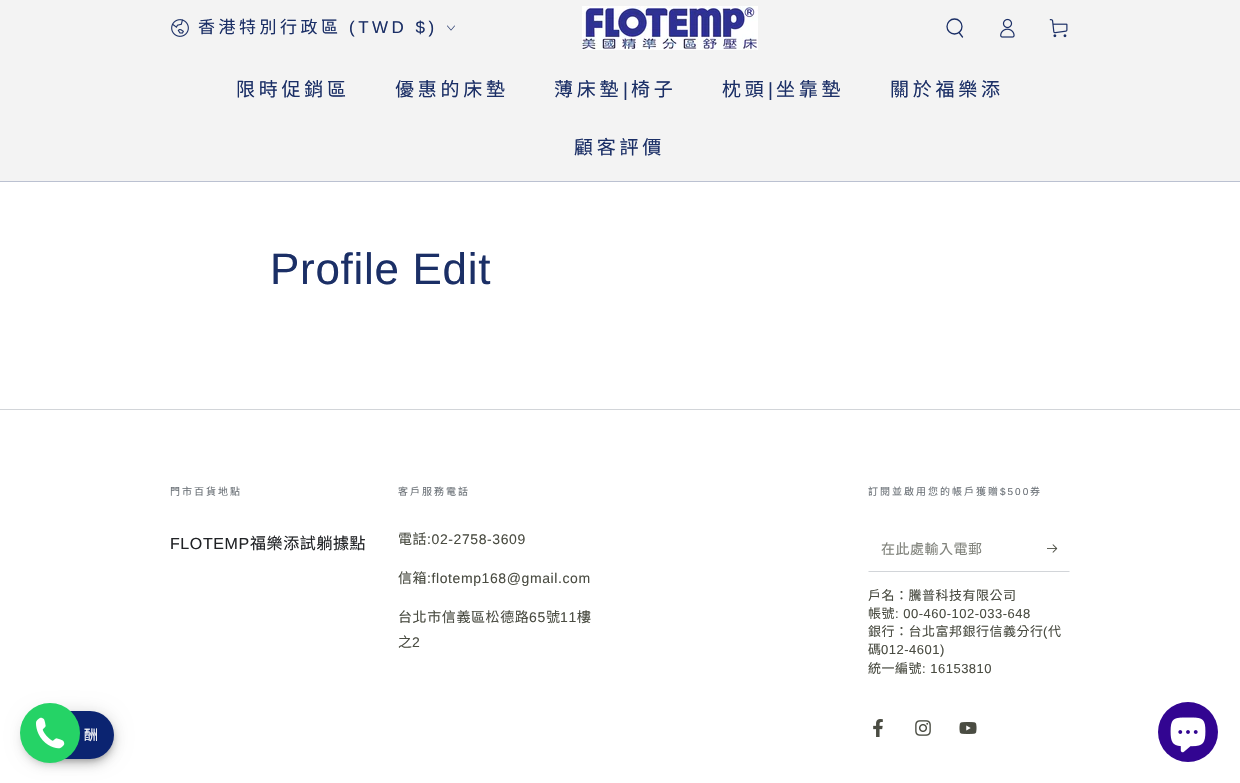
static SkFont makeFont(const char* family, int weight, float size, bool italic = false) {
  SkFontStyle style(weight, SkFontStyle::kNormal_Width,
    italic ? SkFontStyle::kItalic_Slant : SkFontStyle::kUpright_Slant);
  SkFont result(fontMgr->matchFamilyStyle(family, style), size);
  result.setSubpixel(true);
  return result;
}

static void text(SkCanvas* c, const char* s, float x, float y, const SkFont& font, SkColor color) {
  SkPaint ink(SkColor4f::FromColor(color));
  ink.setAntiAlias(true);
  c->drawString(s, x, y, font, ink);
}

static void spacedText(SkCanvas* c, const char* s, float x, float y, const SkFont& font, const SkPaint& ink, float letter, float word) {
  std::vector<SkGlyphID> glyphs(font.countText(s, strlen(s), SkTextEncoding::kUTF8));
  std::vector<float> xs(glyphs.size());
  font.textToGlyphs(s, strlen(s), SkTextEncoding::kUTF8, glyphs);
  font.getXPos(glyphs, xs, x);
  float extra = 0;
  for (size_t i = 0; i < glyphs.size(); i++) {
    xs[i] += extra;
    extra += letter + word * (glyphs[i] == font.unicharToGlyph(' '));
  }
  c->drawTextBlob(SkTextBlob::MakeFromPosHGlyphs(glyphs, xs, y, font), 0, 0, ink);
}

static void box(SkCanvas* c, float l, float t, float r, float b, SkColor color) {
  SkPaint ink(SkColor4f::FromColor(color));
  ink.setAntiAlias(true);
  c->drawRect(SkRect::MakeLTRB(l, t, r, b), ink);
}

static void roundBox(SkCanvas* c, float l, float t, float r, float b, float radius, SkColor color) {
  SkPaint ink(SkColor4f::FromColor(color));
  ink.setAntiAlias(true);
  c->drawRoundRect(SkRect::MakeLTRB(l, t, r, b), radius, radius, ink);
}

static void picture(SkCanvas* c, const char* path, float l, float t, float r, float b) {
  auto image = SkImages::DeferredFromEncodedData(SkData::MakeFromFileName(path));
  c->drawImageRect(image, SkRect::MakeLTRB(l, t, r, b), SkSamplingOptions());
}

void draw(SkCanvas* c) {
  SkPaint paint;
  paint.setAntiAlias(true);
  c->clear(0xffffffff);
  box(c, 0, 181, 1240, 182, 0xffbbc1d1);
  box(c, 0, 0, 1240, 181, 0xfff3f3f3);
  picture(c, "img_01.png", 171, 19, 189, 37);
  SkFont face1 = makeFont("Noto Sans CJK TC", 400, 17);
  paint.setColor(0xff1b2f66);
  spacedText(c, "香港特別行政區", 198, 33, face1, paint, 3.5f, 0);
  SkFont face2 = makeFont("Arimo", 400, 17);
  spacedText(c, "(TWD $)", 349, 33, face2, paint, 3.5f, 0);
  picture(c, "img_02.png", 447, 25, 455, 31);
  picture(c, "img_03.png", 582, 6, 758, 50);
  paint.setStyle(SkPaint::kStroke_Style);
  paint.setStrokeWidth(1.3f);
  c->drawCircle(954.5f, 26.5f, 7.5f, paint);
  paint.setStrokeCap(SkPaint::kRound_Cap);
  c->drawPath(SkPathBuilder().moveTo(959, 32.5f).lineTo(962.5f, 37).detach(), paint);
  picture(c, "img_04.png", 1000, 18, 1015, 38);
  picture(c, "img_05.png", 1049, 19, 1068, 38);
  SkFont face3 = makeFont("Noto Sans CJK TC", 400, 19);
  paint.setStyle(SkPaint::kFill_Style);
  spacedText(c, "限時促銷區", 236, 96, face3, paint, 3.75f, 0);
  spacedText(c, "優惠的床墊", 395, 96, face3, paint, 3.75f, 0);
  spacedText(c, "薄床墊", 554, 96, face3, paint, 3.75f, 0);
  SkFont face4 = makeFont("Arimo", 400, 19);
  spacedText(c, "|", 623, 96, face4, paint, 3.75f, 0);
  spacedText(c, "椅子", 631, 96, face3, paint, 3.75f, 0);
  spacedText(c, "枕頭", 722, 96, face3, paint, 3.75f, 0);
  spacedText(c, "|", 768, 96, face4, paint, 3.75f, 0);
  spacedText(c, "坐靠墊", 776, 96, face3, paint, 3.75f, 0);
  spacedText(c, "關於福樂添", 890, 96, face3, paint, 3.75f, 0);
  spacedText(c, "顧客評價", 574, 154, face3, paint, 3.75f, 0);
  SkFont face5 = makeFont("Arimo", 400, 44);
  spacedText(c, "Profile Edit", 270, 284, face5, paint, 0.7f, 0);
  box(c, 0, 409, 1240, 410, 0xffd2d5d9);
  SkFont face6 = makeFont("Noto Sans CJK TC", 400, 10);
  paint.setColor(0xff6b7177);
  spacedText(c, "門市百貨地點", 170, 495, face6, paint, 2, 0);
  SkFont face7 = makeFont("Arimo", 400, 16);
  paint.setColor(0xff212326);
  spacedText(c, "FLOTEMP", 170, 549, face7, paint, 0.6f, 0);
  SkFont face8 = makeFont("Noto Sans CJK TC", 400, 16);
  spacedText(c, "福樂添試躺據點", 250, 549, face8, paint, 0.6f, 0);
  paint.setColor(0xff6b7177);
  spacedText(c, "客戶服務電話", 398, 495, face6, paint, 2, 0);
  SkFont face9 = makeFont("Noto Sans CJK TC", 400, 14);
  paint.setColor(0xff4a4c42);
  spacedText(c, "電話", 398, 544, face9, paint, 0.6f, 0);
  SkFont face10 = makeFont("Arimo", 400, 14);
  spacedText(c, ":02-2758-3609", 427, 544, face10, paint, 0.6f, 0);
  spacedText(c, "信箱", 398, 583, face9, paint, 0.6f, 0);
  spacedText(c, ":flotemp168@gmail.com", 427, 583, face10, paint, 0.6f, 0);
  spacedText(c, "台北市信義區松德路", 398, 622, face9, paint, 0.6f, 0);
  spacedText(c, "65", 529, 622, face10, paint, 0.6f, 0);
  spacedText(c, "號", 546, 622, face9, paint, 0.6f, 0);
  spacedText(c, "11", 560, 622, face10, paint, 0.6f, 0);
  spacedText(c, "樓", 577, 622, face9, paint, 0.6f, 0);
  spacedText(c, "之", 398, 647, face9, paint, 0.6f, 0);
  spacedText(c, "2", 412, 647, face10, paint, 0.6f, 0);
  paint.setColor(0xff6b7177);
  spacedText(c, "訂閱並啟用您的帳戶獲贈", 868, 495, face6, paint, 2, 0);
  SkFont face11 = makeFont("Arimo", 400, 10);
  spacedText(c, "$500", 1000, 495, face11, paint, 2, 0);
  spacedText(c, "券", 1030, 495, face6, paint, 2, 0);
  paint.setColor(0xffd2d5d9);
  c->drawPath(SkPathBuilder().moveTo(1070, 572).lineTo(868, 572).lineTo(869, 571).lineTo(1069, 571).close().detach(), paint);
  paint.setColor(0xff80827b);
  spacedText(c, "在此處輸入電郵", 881, 554, face9, paint, 0.5f, 0);
  picture(c, "img_06.png", 1047, 544, 1058, 553);
  SkFont face12 = makeFont("Noto Sans CJK TC", 400, 13);
  paint.setColor(0xff4a4c42);
  spacedText(c, "戶名：騰普科技有限公司", 868, 600, face12, paint, 0.5f, 0);
  spacedText(c, "帳號", 868, 618, face12, paint, 0.5f, 0);
  SkFont face13 = makeFont("Arimo", 400, 13);
  spacedText(c, ": 00-460-102-033-648", 895, 618, face13, paint, 0.5f, 0);
  spacedText(c, "銀行：台北富邦銀行信義分行", 868, 636, face12, paint, 0.5f, 0);
  spacedText(c, "(", 1043, 636, face13, paint, 0.5f, 0);
  spacedText(c, "代", 1048, 636, face12, paint, 0.5f, 0);
  spacedText(c, "碼", 868, 654, face12, paint, 0.5f, 0);
  spacedText(c, "012-4601)", 881, 654, face13, paint, 0.5f, 0);
  spacedText(c, "統一編號", 868, 673, face12, paint, 0.5f, 0);
  spacedText(c, ": 16153810", 922, 673, face13, paint, 0.5f, 0);
  picture(c, "img_07.png", 873, 719, 883, 737);
  picture(c, "img_08.png", 915, 720, 931, 736);
  picture(c, "img_09.png", 959, 722, 977, 734);
  paint.setColor(0x1f000000);
  paint.setMaskFilter(SkMaskFilter::MakeBlur(kNormal_SkBlurStyle, 9));
  c->drawRoundRect(SkRect::MakeLTRB(24, 712, 114, 760), 24, 24, paint);
  paint.setMaskFilter(nullptr);
  paint.setColor(0x24000000);
  paint.setMaskFilter(SkMaskFilter::MakeBlur(kNormal_SkBlurStyle, 5));
  c->drawRoundRect(SkRect::MakeLTRB(24, 717, 114, 765), 24, 24, paint);
  paint.setMaskFilter(nullptr);
  paint.setColor(0x33000000);
  paint.setMaskFilter(SkMaskFilter::MakeBlur(kNormal_SkBlurStyle, 2.5f));
  c->drawRoundRect(SkRect::MakeLTRB(25, 715, 113, 761), 23, 23, paint);
  paint.setMaskFilter(nullptr);
  roundBox(c, 24, 711, 114, 759, 24, 0xff0b2471);
  paint.setColor(0xff25d366);
  c->drawCircle(50, 733, 30, paint);
  picture(c, "img_10.png", 36, 717, 65, 749);
  text(c, "酬", 84, 740, face9, 0xffffffff);
  paint.setColor(0xff320591);
  c->drawCircle(1188, 732, 30, paint);
  picture(c, "img_11.png", 1170, 717, 1206, 753);
}
